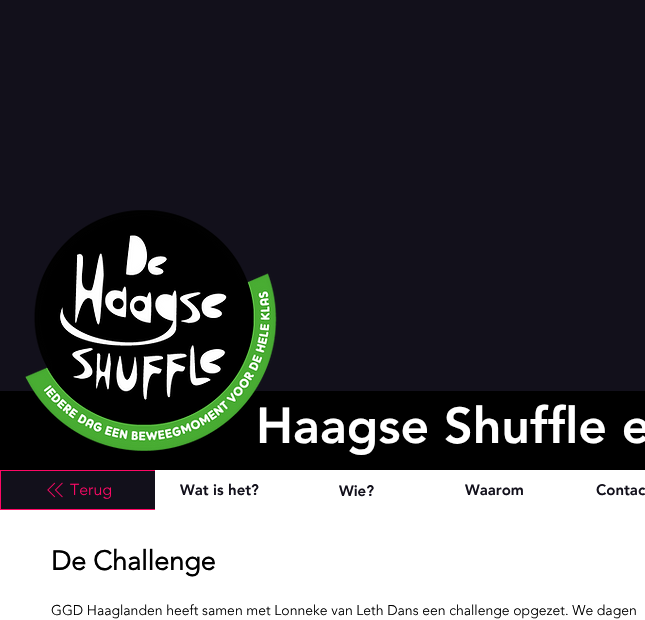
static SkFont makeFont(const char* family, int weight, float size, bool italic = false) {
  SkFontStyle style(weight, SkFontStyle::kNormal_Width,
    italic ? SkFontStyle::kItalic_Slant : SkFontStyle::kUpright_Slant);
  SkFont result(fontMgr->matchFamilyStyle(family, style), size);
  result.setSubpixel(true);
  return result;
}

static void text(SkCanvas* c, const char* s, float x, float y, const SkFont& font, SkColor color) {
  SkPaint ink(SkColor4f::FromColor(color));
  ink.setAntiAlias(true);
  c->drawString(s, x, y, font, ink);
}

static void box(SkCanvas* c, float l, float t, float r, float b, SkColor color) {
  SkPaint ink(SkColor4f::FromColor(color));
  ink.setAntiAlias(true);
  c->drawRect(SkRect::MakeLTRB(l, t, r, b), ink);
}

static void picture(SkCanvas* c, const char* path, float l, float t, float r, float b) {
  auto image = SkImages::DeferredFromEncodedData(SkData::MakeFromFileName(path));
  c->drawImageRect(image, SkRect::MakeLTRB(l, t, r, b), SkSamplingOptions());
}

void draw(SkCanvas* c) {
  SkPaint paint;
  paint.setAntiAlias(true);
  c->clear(0xff12101b);
  box(c, 0, 391, 645, 470, 0xff000000);
  SkFont face1 = makeFont("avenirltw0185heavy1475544", 900, 50);
  text(c, "Haagse Shuffle e", 256, 443, face1, 0xffffffff);
  picture(c, "img_01.png", 25, 210, 277, 451);
  box(c, 284, 470, 645, 510, 0xffffffff);
  paint.setStyle(SkPaint::kStroke_Style);
  paint.setStrokeWidth(1);
  paint.setColor(0xfffe0865);
  c->drawRect(SkRect::MakeLTRB(0.5f, 470.5f, 155.5f, 509.5f), paint);
  picture(c, "img_02.png", 47, 482, 63, 498);
  SkFont face2 = makeFont("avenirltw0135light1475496", 300, 16);
  text(c, "Terug", 70, 495, face2, 0xfffe0865);
  box(c, 155, 470, 284, 510, 0xffffffff);
  SkFont face3 = makeFont("avenirltw0185heavy1475544", 900, 15);
  text(c, "Wat is het?", 180, 495, face3, 0xff12101b);
  text(c, "Wie?", 339, 496, face3, 0xff12101b);
  text(c, "Waarom", 465, 495, face3, 0xff12101b);
  text(c, "Contac", 596, 495, face3, 0xff12101b);
  box(c, 0, 510, 645, 620, 0xffffffff);
  SkFont face4 = makeFont("avenirltw0135light1475496", 700, 27);
  text(c, "De Challenge", 51, 570, face4, 0xff000000);
  SkFont face5 = makeFont("avenirltw0135light1475496", 300, 14);
  text(c, "GGD Haaglanden heeft samen met Lonneke van Leth Dans een challenge opgezet. We dagen", 51, 615, face5, 0xff000000);
}
